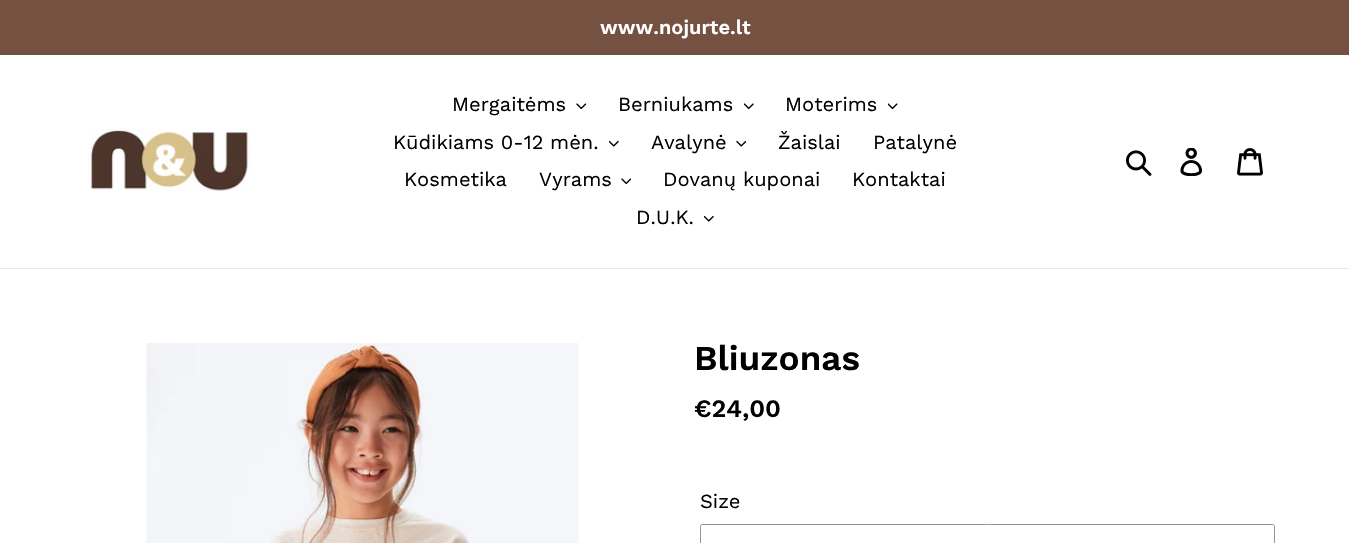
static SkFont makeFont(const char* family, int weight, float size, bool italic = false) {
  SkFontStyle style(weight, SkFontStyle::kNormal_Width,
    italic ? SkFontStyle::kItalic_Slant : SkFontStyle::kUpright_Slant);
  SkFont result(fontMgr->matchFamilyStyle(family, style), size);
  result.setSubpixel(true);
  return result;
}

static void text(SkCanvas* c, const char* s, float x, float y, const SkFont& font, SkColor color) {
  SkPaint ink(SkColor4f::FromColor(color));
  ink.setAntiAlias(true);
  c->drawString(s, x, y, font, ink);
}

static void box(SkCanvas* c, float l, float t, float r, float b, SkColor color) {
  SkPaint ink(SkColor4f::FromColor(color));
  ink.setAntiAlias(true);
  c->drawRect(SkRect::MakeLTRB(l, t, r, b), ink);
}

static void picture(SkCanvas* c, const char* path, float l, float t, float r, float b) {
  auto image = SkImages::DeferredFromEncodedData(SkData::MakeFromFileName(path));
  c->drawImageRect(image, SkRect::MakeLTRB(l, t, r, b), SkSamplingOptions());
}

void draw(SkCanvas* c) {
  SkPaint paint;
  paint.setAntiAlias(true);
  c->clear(0xffffffff);
  box(c, 0, 0, 1349, 55, 0xff755141);
  SkFont face1 = makeFont("Work Sans", 600, 20);
  text(c, "www.nojurte.lt", 600, 34, face1, 0xffffffff);
  box(c, 0, 268, 1349, 269, 0xffe8e9eb);
  picture(c, "img_01.png", 88, 128, 250, 191);
  SkFont face2 = makeFont("Work Sans", 400, 20);
  text(c, "Mergaitėms", 452, 111, face2, 0xff000000);
  picture(c, "img_02.png", 576, 103, 586, 110);
  text(c, "Berniukams", 618, 111, face2, 0xff000000);
  picture(c, "img_03.png", 744, 103, 754, 110);
  text(c, "Moterims", 785, 111, face2, 0xff000000);
  picture(c, "img_04.png", 888, 103, 898, 110);
  text(c, "Kūdikiams 0-12 mėn.", 393, 149, face2, 0xff000000);
  picture(c, "img_05.png", 609, 140, 619, 147);
  text(c, "Avalynė", 651, 149, face2, 0xff000000);
  picture(c, "img_06.png", 736, 140, 746, 147);
  text(c, "Žaislai", 778, 149, face2, 0xff000000);
  text(c, "Patalynė", 873, 149, face2, 0xff000000);
  text(c, "Kosmetika", 404, 186, face2, 0xff000000);
  text(c, "Vyrams", 539, 186, face2, 0xff000000);
  picture(c, "img_02.png", 621, 178, 631, 185);
  text(c, "Dovanų kuponai", 663, 186, face2, 0xff000000);
  text(c, "Kontaktai", 852, 186, face2, 0xff000000);
  text(c, "D.U.K.", 636, 224, face2, 0xff000000);
  picture(c, "img_05.png", 704, 215, 714, 222);
  picture(c, "img_07.png", 1126, 150, 1152, 176);
  picture(c, "img_08.png", 1180, 148, 1203, 176);
  picture(c, "img_09.png", 1237, 148, 1263, 176);
  picture(c, "img_10.png", 146, 343, 579, 543);
  SkFont face3 = makeFont("Work Sans", 600, 35);
  text(c, "Bliuzonas", 694, 370, face3, 0xff000000);
  SkFont face4 = makeFont("Work Sans", 600, 25);
  text(c, "€24,00", 694, 417, face4, 0xff000000);
  text(c, "Size", 700, 508, face2, 0xff000000);
  paint.setStyle(SkPaint::kStroke_Style);
  paint.setStrokeWidth(1);
  paint.setColor(0xff949494);
  c->drawRoundRect(SkRect::MakeLTRB(700.5f, 524.5f, 1274.5f, 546.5f), 2, 2, paint);
}
